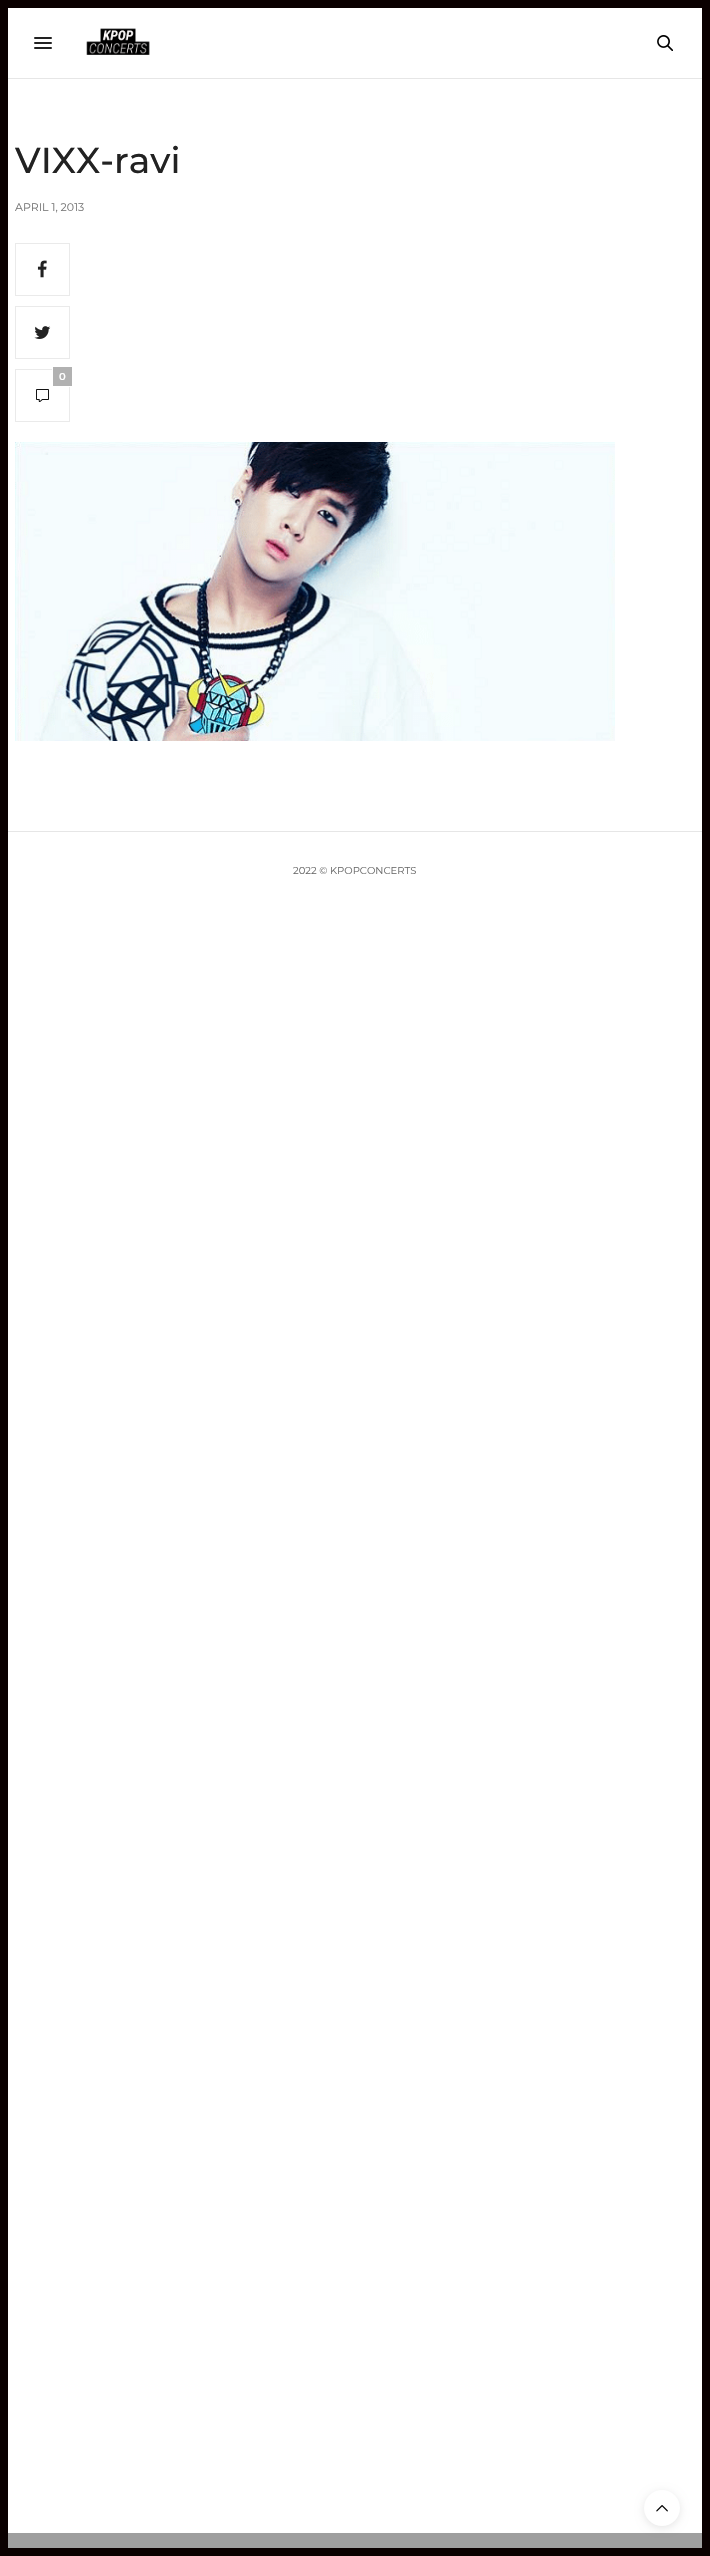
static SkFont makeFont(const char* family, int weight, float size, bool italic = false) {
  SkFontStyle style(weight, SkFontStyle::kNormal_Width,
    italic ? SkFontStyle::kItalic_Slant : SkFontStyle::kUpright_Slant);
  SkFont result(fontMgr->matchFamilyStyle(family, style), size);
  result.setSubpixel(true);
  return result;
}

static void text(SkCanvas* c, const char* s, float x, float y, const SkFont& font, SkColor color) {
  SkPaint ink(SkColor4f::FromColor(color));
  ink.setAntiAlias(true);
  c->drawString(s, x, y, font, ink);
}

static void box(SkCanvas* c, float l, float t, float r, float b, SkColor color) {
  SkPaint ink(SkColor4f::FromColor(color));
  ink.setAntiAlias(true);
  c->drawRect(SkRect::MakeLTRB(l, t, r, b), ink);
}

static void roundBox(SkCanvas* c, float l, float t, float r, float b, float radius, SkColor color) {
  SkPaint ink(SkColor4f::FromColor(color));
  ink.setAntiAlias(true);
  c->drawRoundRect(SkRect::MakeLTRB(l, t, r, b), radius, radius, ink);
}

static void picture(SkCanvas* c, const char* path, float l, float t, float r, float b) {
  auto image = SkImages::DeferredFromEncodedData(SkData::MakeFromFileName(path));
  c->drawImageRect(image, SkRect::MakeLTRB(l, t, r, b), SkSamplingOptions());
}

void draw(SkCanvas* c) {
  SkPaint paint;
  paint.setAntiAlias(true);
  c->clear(0xffffffff);
  box(c, 0, 78, 710, 79, 0xffe6e6e6);
  roundBox(c, 34, 37, 52, 39, 1, 0xff222222);
  roundBox(c, 34, 42, 52, 44, 1, 0xff222222);
  roundBox(c, 34, 47, 52, 49, 1, 0xff222222);
  picture(c, "img_01.png", 86, 28, 150, 55);
  picture(c, "img_02.png", 657, 35, 673, 51);
  paint.setStyle(SkPaint::kStroke_Style);
  paint.setStrokeWidth(1);
  paint.setColor(0xffeaeaea);
  c->drawRect(SkRect::MakeLTRB(15.5f, 243.5f, 69.5f, 295.5f), paint);
  picture(c, "img_03.png", 37, 260, 47, 278);
  c->drawRect(SkRect::MakeLTRB(15.5f, 306.5f, 69.5f, 358.5f), paint);
  picture(c, "img_04.png", 34, 326, 51, 339);
  c->drawRect(SkRect::MakeLTRB(15.5f, 369.5f, 69.5f, 421.5f), paint);
  box(c, 53, 367, 72, 386, 0xffb1b1b1);
  box(c, 69, 386, 72, 387, 0xffffffff);
  box(c, 52, 367, 53, 370, 0xffffffff);
  picture(c, "img_05.png", 36, 389, 49, 402);
  picture(c, "img_06.png", 15, 442, 615, 741);
  box(c, 0, 831, 710, 832, 0xffe6e6e6);
  box(c, 8, 2533, 702, 2548, 0xff9f9f9f);
  paint.setStyle(SkPaint::kFill_Style);
  paint.setColor(0x1a000000);
  paint.setMaskFilter(SkMaskFilter::MakeBlur(kNormal_SkBlurStyle, 4));
  c->drawRoundRect(SkRect::MakeLTRB(644, 2492, 680, 2528), 18, 18, paint);
  paint.setMaskFilter(nullptr);
  paint.setColor(0xffffffff);
  c->drawCircle(662, 2508, 18, paint);
  picture(c, "img_07.png", 656, 2505, 668, 2512);
  paint.setStyle(SkPaint::kStroke_Style);
  paint.setStrokeWidth(8);
  paint.setColor(0xff0a0000);
  c->drawRect(SkRect::MakeLTRB(4, 4, 706, 2552), paint);
  SkFont face1 = makeFont("Montserrat", 500, 36);
  text(c, "VIXX-ravi", 15, 173, face1, 0xff222222);
  SkFont face2 = makeFont("Montserrat", 400, 11);
  text(c, "APRIL 1, 2013", 15, 211, face2, 0xff767676);
  SkFont face3 = makeFont("Montserrat", 600, 10);
  text(c, "0", 59, 380, face3, 0xffffffff);
  SkFont face4 = makeFont("Montserrat", 400, 10);
  text(c, "2022 © KPOPCONCERTS", 293, 874, face4, 0xff6a6a6a);
}
